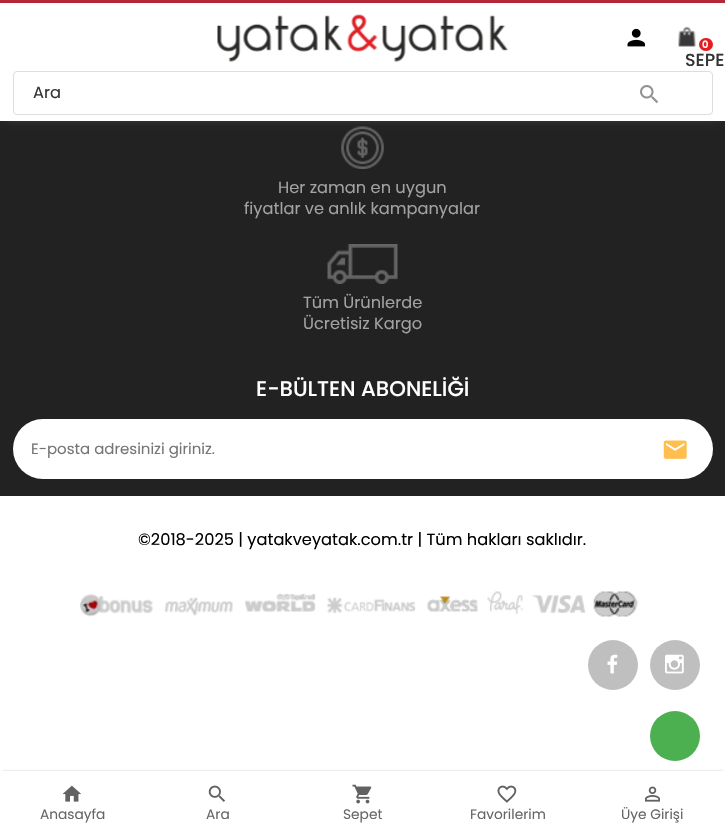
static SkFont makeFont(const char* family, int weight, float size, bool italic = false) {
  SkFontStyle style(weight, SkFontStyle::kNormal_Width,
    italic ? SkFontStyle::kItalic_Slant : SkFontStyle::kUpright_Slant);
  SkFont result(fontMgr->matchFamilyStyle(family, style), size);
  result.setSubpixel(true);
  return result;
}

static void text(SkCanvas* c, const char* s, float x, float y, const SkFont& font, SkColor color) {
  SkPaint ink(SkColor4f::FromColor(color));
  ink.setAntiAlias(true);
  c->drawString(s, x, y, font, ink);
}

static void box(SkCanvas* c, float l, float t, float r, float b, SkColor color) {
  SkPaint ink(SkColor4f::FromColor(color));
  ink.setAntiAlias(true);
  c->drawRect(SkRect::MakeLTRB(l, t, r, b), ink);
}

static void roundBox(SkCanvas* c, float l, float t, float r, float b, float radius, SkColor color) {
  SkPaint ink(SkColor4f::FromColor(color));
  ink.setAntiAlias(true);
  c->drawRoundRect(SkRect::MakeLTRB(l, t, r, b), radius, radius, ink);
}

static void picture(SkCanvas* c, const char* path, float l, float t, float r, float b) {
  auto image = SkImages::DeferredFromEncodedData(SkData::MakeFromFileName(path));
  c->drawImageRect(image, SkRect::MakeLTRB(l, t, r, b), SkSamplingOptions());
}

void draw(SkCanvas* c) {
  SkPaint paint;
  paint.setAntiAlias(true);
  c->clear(0xffffffff);
  box(c, 0, 121, 725, 496, 0xff222222);
  picture(c, "img_10.png", 341, 126, 384, 169);
  paint.setColor(0xff808080);
  paint.setMaskFilter(SkMaskFilter::MakeBlur(kNormal_SkBlurStyle, 5.5f));
  c->drawRect(SkRect::MakeLTRB(6, 6, 719, 115), paint);
  paint.setMaskFilter(nullptr);
  box(c, 0, 3, 725, 121, 0xffffffff);
  box(c, 0, 0, 725, 3, 0xffb22838);
  picture(c, "img_01.png", 217, 14, 508, 62);
  picture(c, "img_02.png", 627, 28, 645, 47);
  picture(c, "img_03.png", 678, 26, 696, 47);
  roundBox(c, 699, 38, 713, 51, 6.5f, 0xffe21e23);
  SkFont face1 = makeFont("Poppins", 600, 10);
  text(c, "0", 702, 48, face1, 0xffffffff);
  SkFont face2 = makeFont("Poppins", 500, 17.5f);
  text(c, "SEPE", 685, 66, face2, 0xff343434);
  paint.setStyle(SkPaint::kStroke_Style);
  paint.setStrokeWidth(1);
  paint.setColor(0xffdddddd);
  c->drawRoundRect(SkRect::MakeLTRB(13.5f, 71.5f, 712.5f, 114.5f), 3.5f, 3.5f, paint);
  SkFont face3 = makeFont("Poppins", 400, 16.25f);
  text(c, "Ara", 33, 98, face3, 0xff343434);
  picture(c, "img_04.png", 640, 85, 659, 104);
  paint.setStyle(SkPaint::kFill_Style);
  paint.setColor(0xff4caf50);
  c->drawCircle(675, 736, 25, paint);
  paint.setColor(0x33000000);
  paint.setMaskFilter(SkMaskFilter::MakeBlur(kNormal_SkBlurStyle, 1));
  c->drawRect(SkRect::MakeLTRB(3, 771, 723, 829), paint);
  paint.setMaskFilter(nullptr);
  box(c, 1, 771, 725, 831, 0xffffffff);
  picture(c, "img_05.png", 62, 785, 81, 802);
  SkFont face4 = makeFont("Poppins", 400, 13.75f);
  text(c, "Anasayfa", 40, 819, face4, 0xff666666);
  picture(c, "img_06.png", 208, 785, 225, 802);
  text(c, "Ara", 206, 819, face4, 0xff666666);
  picture(c, "img_07.png", 352, 784, 372, 804);
  text(c, "Sepet", 343, 819, face4, 0xff666666);
  picture(c, "img_08.png", 497, 785, 517, 803);
  text(c, "Favorilerim", 470, 819, face4, 0xff666666);
  picture(c, "img_09.png", 645, 786, 660, 802);
  text(c, "Üye Girişi", 621, 819, face4, 0xff666666);
  text(c, "Her zaman en uygun", 278, 193, face3, 0xffa2a2a2);
  text(c, "fiyatlar ve anlık kampanyalar", 244, 214, face3, 0xffa2a2a2);
  picture(c, "img_11.png", 327, 244, 398, 284);
  text(c, "Tüm Ürünlerde", 303, 308, face3, 0xffa2a2a2);
  text(c, "Ücretisiz Kargo", 303, 329, face3, 0xffa2a2a2);
  SkFont face5 = makeFont("Poppins", 500, 21.25f);
  text(c, "E-BÜLTEN ABONELİĞİ", 256, 396, face5, 0xffffffff);
  roundBox(c, 13, 419, 713, 479, 30, 0xffffffff);
  SkFont face6 = makeFont("Poppins", 400, 15);
  text(c, "E-posta adresinizi giriniz.", 31, 454, face6, 0xff757575);
  picture(c, "img_12.png", 663, 440, 687, 459);
  text(c, "©2018-2025 | yatakveyatak.com.tr | Tüm hakları saklıdır.", 138, 545, face3, 0xff000000);
  picture(c, "img_13.png", 80, 591, 638, 617);
  paint.setColor(0xffbfbfbf);
  c->drawCircle(613, 665, 25, paint);
  picture(c, "img_14.png", 607, 654, 618, 674);
  c->drawCircle(675, 665, 25, paint);
  picture(c, "img_15.png", 665, 654, 684, 674);
}
